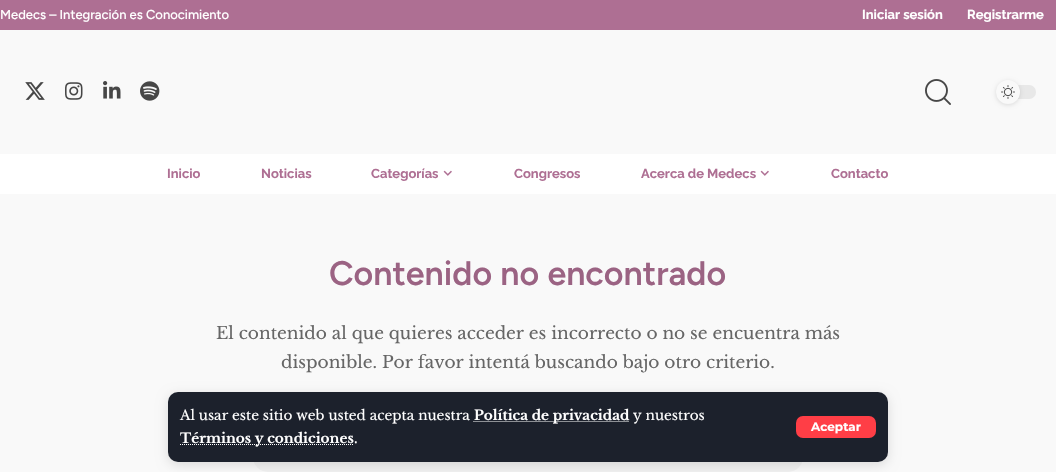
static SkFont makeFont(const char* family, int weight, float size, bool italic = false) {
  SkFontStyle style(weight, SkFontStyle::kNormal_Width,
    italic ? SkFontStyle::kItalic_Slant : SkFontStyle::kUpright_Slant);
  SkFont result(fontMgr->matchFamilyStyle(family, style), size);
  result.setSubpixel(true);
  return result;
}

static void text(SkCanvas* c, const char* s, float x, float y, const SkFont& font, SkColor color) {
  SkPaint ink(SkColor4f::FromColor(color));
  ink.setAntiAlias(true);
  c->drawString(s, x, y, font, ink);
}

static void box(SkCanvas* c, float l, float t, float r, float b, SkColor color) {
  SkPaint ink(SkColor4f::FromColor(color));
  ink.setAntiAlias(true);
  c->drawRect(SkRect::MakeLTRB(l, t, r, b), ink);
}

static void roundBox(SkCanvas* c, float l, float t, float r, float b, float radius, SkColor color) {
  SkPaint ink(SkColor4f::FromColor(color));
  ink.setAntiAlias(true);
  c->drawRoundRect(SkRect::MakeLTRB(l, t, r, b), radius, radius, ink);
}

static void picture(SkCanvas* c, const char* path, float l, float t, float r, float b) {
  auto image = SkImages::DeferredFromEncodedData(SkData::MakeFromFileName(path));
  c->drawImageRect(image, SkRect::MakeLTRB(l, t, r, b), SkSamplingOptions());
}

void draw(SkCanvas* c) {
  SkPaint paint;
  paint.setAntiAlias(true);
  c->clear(0xfff9f9f9);
  box(c, 0, 0, 1056, 30, 0xffae6f93);
  SkFont face1 = makeFont("Figtree", 500, 13);
  text(c, "Medecs – Integración es Conocimiento", 0, 19, face1, 0xffffffff);
  SkFont face2 = makeFont("Raleway", 700, 13);
  text(c, "Iniciar sesión", 862, 19, face2, 0xffffffff);
  text(c, "Registrarme", 967, 19, face2, 0xffffffff);
  picture(c, "img_01.png", 25, 82, 45, 100);
  picture(c, "img_02.png", 65, 82, 83, 100);
  picture(c, "img_03.png", 103, 81, 121, 99);
  picture(c, "img_04.png", 140, 81, 160, 101);
  picture(c, "img_05.png", 925, 79, 951, 105);
  roundBox(c, 996, 85, 1036, 99, 7, 0xffe8e8e8);
  paint.setColor(0x1f000000);
  paint.setMaskFilter(SkMaskFilter::MakeBlur(kNormal_SkBlurStyle, 2));
  c->drawRoundRect(SkRect::MakeLTRB(996, 81, 1020, 105), 12, 12, paint);
  paint.setMaskFilter(nullptr);
  paint.setColor(0xfff9f9f9);
  c->drawCircle(1008, 92, 12, paint);
  picture(c, "img_06.png", 1001, 85, 1015, 99);
  box(c, 0, 154, 1056, 194, 0xffffffff);
  text(c, "Inicio", 167, 178, face2, 0xffae6f93);
  text(c, "Noticias", 261, 178, face2, 0xffae6f93);
  text(c, "Categorías", 371, 178, face2, 0xffae6f93);
  picture(c, "img_07.png", 443, 170, 452, 176);
  text(c, "Congresos", 514, 178, face2, 0xffae6f93);
  text(c, "Acerca de Medecs", 641, 178, face2, 0xffae6f93);
  picture(c, "img_07.png", 760, 170, 769, 176);
  text(c, "Contacto", 831, 178, face2, 0xffae6f93);
  roundBox(c, 253, 403, 803, 472, 15, 0xfff1f1f1);
  paint.setColor(0x1f000000);
  paint.setMaskFilter(SkMaskFilter::MakeBlur(kNormal_SkBlurStyle, 6));
  c->drawRoundRect(SkRect::MakeLTRB(168, 395, 888, 465), 10, 10, paint);
  paint.setMaskFilter(nullptr);
  roundBox(c, 168, 392, 888, 462, 10, 0xff1c212c);
  SkFont face3 = makeFont("Libre Baskerville", 400, 13.6f);
  text(c, "Al usar este sitio web usted acepta nuestra", 180, 420, face3, 0xffffffff);
  paint.setStyle(SkPaint::kStroke_Style);
  paint.setStrokeWidth(1);
  paint.setColor(0xffffffff);
  paint.setPathEffect(SkDashPathEffect::Make({{1, 1}}, 0));
  c->drawPath(SkPathBuilder().moveTo(473.5f, 421.5f).lineTo(629, 421.5f).detach(), paint);
  paint.setPathEffect(nullptr);
  SkFont face4 = makeFont("Libre Baskerville", 700, 13.6f);
  text(c, "Política de privacidad", 474, 420, face4, 0xffffffff);
  text(c, "y nuestros", 633, 420, face3, 0xffffffff);
  paint.setPathEffect(SkDashPathEffect::Make({{1, 1}}, 0));
  c->drawPath(SkPathBuilder().moveTo(180, 444.5f).lineTo(353.5f, 444.5f).detach(), paint);
  paint.setPathEffect(nullptr);
  text(c, "Términos y condiciones", 180, 443, face4, 0xffffffff);
  text(c, ".", 354, 443, face3, 0xffffffff);
  roundBox(c, 796, 416, 876, 438, 7, 0xffff3e46);
  SkFont face5 = makeFont("Montserrat", 700, 12);
  text(c, "Aceptar", 811, 431, face5, 0xffffffff);
  SkFont face6 = makeFont("Figtree", 600, 34);
  text(c, "Contenido no encontrado", 329, 285, face6, 0xff9b6383);
  SkFont face7 = makeFont("Libre Baskerville", 400, 17);
  text(c, "El contenido al que quieres acceder es incorrecto o no se encuentra más", 216, 339, face7, 0xff666666);
  text(c, "disponible. Por favor intentá buscando bajo otro criterio.", 281, 368, face7, 0xff666666);
}
